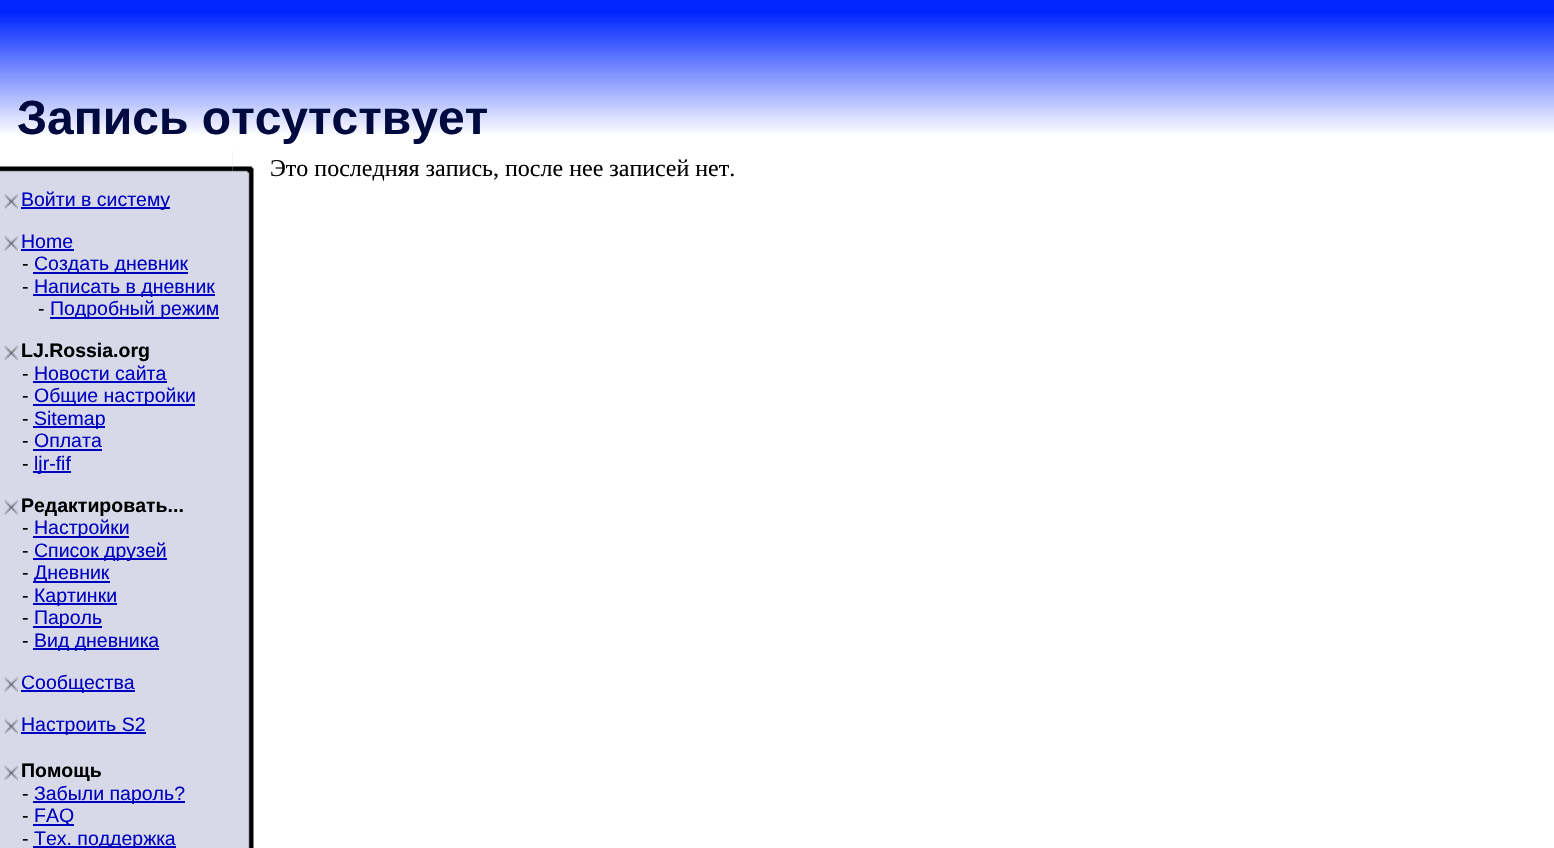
static SkFont makeFont(const char* family, int weight, float size, bool italic = false) {
  SkFontStyle style(weight, SkFontStyle::kNormal_Width,
    italic ? SkFontStyle::kItalic_Slant : SkFontStyle::kUpright_Slant);
  SkFont result(fontMgr->matchFamilyStyle(family, style), size);
  result.setSubpixel(true);
  return result;
}

static void text(SkCanvas* c, const char* s, float x, float y, const SkFont& font, SkColor color) {
  SkPaint ink(SkColor4f::FromColor(color));
  ink.setAntiAlias(true);
  c->drawString(s, x, y, font, ink);
}

static void box(SkCanvas* c, float l, float t, float r, float b, SkColor color) {
  SkPaint ink(SkColor4f::FromColor(color));
  ink.setAntiAlias(true);
  c->drawRect(SkRect::MakeLTRB(l, t, r, b), ink);
}

static void picture(SkCanvas* c, const char* path, float l, float t, float r, float b) {
  auto image = SkImages::DeferredFromEncodedData(SkData::MakeFromFileName(path));
  c->drawImageRect(image, SkRect::MakeLTRB(l, t, r, b), SkSamplingOptions());
}

void draw(SkCanvas* c) {
  SkPaint paint;
  paint.setAntiAlias(true);
  c->clear(0xffffffff);
  picture(c, "img_01.png", 0, 0, 1554, 134);
  SkFont face1 = makeFont("Liberation Sans", 700, 48);
  text(c, "Запись отсутствует", 17, 134, face1, 0xff000a3f);
  picture(c, "img_02.png", 233, 187, 254, 848);
  box(c, 0, 150, 233, 848, 0xffd7d9e8);
  picture(c, "img_04.png", 0, 150, 233, 172);
  picture(c, "img_03.png", 232, 150, 254, 188);
  box(c, 248, 188, 249, 848, 0xffbcbdcb);
  SkFont face2 = makeFont("Liberation Serif", 400, 24);
  text(c, "Это последняя запись, после нее записей нет.", 270, 176, face2, 0xff000000);
  picture(c, "img_05.png", 4, 193, 18, 209);
  box(c, 21, 207, 170, 209, 0xff0000c0);
  SkFont face3 = makeFont("Liberation Sans", 400, 19.5f);
  text(c, "Войти в систему", 21, 206, face3, 0xff0000c0);
  picture(c, "img_05.png", 4, 235, 18, 251);
  text(c, "Home", 21, 248, face3, 0xff0000c0);
  box(c, 21, 249, 74, 251, 0xff0000c0);
  text(c, "-", 22, 270, face3, 0xff000000);
  box(c, 33, 272, 188, 274, 0xff0000c0);
  text(c, "Создать дневник", 34, 270, face3, 0xff0000c0);
  text(c, "-", 22, 293, face3, 0xff000000);
  box(c, 33, 294, 215, 296, 0xff0000c0);
  text(c, "Написать в дневник", 34, 293, face3, 0xff0000c0);
  text(c, "-", 38, 315, face3, 0xff000000);
  box(c, 50, 317, 219, 319, 0xff0000c0);
  text(c, "Подробный режим", 50, 315, face3, 0xff0000c0);
  picture(c, "img_06.png", 4, 345, 18, 360);
  SkFont face4 = makeFont("Liberation Sans", 700, 19.5f);
  text(c, "LJ.Rossia.org", 21, 357, face4, 0xff000000);
  text(c, "-", 22, 380, face3, 0xff000000);
  text(c, "Новости сайта", 34, 380, face3, 0xff0000c0);
  box(c, 33, 381, 167, 383, 0xff0000c0);
  text(c, "-", 22, 402, face3, 0xff000000);
  box(c, 33, 404, 195, 406, 0xff0000c0);
  text(c, "Общие настройки", 34, 402, face3, 0xff0000c0);
  text(c, "-", 22, 425, face3, 0xff000000);
  box(c, 33, 426, 105, 428, 0xff0000c0);
  text(c, "Sitemap", 34, 425, face3, 0xff0000c0);
  text(c, "-", 22, 447, face3, 0xff000000);
  text(c, "Оплата", 34, 447, face3, 0xff0000c0);
  box(c, 33, 449, 102, 451, 0xff0000c0);
  text(c, "-", 22, 470, face3, 0xff000000);
  box(c, 33, 471, 71, 473, 0xff0000c0);
  text(c, "ljr-fif", 34, 470, face3, 0xff0000c0);
  picture(c, "img_05.png", 4, 499, 18, 515);
  text(c, "Редактировать...", 21, 512, face4, 0xff000000);
  text(c, "-", 22, 534, face3, 0xff000000);
  box(c, 33, 536, 129, 538, 0xff0000c0);
  text(c, "Настройки", 34, 534, face3, 0xff0000c0);
  text(c, "-", 22, 557, face3, 0xff000000);
  box(c, 33, 558, 167, 560, 0xff0000c0);
  text(c, "Список друзей", 34, 557, face3, 0xff0000c0);
  text(c, "-", 22, 579, face3, 0xff000000);
  box(c, 33, 581, 110, 583, 0xff0000c0);
  text(c, "Дневник", 34, 579, face3, 0xff0000c0);
  text(c, "-", 22, 602, face3, 0xff000000);
  box(c, 33, 603, 117, 605, 0xff0000c0);
  text(c, "Картинки", 34, 602, face3, 0xff0000c0);
  text(c, "-", 22, 624, face3, 0xff000000);
  box(c, 33, 626, 102, 628, 0xff0000c0);
  text(c, "Пароль", 34, 624, face3, 0xff0000c0);
  text(c, "-", 22, 647, face3, 0xff000000);
  box(c, 33, 648, 159, 650, 0xff0000c0);
  text(c, "Вид дневника", 34, 647, face3, 0xff0000c0);
  picture(c, "img_05.png", 4, 676, 18, 692);
  box(c, 21, 690, 135, 692, 0xff0000c0);
  text(c, "Сообщества", 21, 689, face3, 0xff0000c0);
  picture(c, "img_05.png", 4, 718, 18, 734);
  box(c, 21, 732, 146, 734, 0xff0000c0);
  text(c, "Настроить S2", 21, 731, face3, 0xff0000c0);
  picture(c, "img_06.png", 4, 765, 18, 780);
  text(c, "Помощь", 21, 777, face4, 0xff000000);
  text(c, "-", 22, 800, face3, 0xff000000);
  box(c, 33, 801, 185, 803, 0xff0000c0);
  text(c, "Забыли пароль?", 34, 800, face3, 0xff0000c0);
  text(c, "-", 22, 822, face3, 0xff000000);
  box(c, 33, 824, 74, 826, 0xff0000c0);
  text(c, "FAQ", 34, 822, face3, 0xff0000c0);
  text(c, "-", 22, 845, face3, 0xff000000);
  box(c, 33, 846, 176, 848, 0xff0000c0);
  text(c, "Тех. поддержка", 34, 845, face3, 0xff0000c0);
}
